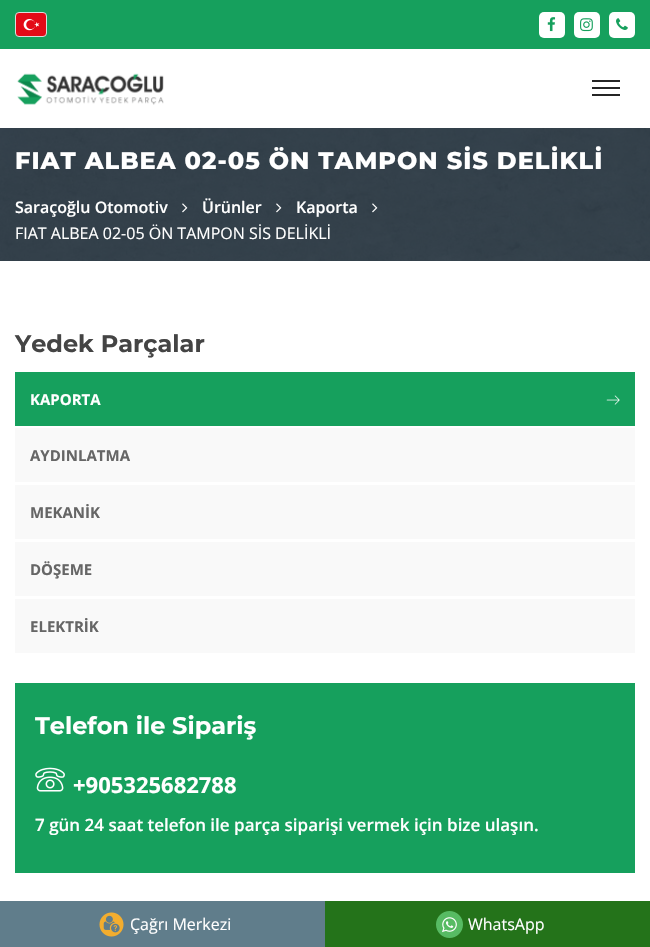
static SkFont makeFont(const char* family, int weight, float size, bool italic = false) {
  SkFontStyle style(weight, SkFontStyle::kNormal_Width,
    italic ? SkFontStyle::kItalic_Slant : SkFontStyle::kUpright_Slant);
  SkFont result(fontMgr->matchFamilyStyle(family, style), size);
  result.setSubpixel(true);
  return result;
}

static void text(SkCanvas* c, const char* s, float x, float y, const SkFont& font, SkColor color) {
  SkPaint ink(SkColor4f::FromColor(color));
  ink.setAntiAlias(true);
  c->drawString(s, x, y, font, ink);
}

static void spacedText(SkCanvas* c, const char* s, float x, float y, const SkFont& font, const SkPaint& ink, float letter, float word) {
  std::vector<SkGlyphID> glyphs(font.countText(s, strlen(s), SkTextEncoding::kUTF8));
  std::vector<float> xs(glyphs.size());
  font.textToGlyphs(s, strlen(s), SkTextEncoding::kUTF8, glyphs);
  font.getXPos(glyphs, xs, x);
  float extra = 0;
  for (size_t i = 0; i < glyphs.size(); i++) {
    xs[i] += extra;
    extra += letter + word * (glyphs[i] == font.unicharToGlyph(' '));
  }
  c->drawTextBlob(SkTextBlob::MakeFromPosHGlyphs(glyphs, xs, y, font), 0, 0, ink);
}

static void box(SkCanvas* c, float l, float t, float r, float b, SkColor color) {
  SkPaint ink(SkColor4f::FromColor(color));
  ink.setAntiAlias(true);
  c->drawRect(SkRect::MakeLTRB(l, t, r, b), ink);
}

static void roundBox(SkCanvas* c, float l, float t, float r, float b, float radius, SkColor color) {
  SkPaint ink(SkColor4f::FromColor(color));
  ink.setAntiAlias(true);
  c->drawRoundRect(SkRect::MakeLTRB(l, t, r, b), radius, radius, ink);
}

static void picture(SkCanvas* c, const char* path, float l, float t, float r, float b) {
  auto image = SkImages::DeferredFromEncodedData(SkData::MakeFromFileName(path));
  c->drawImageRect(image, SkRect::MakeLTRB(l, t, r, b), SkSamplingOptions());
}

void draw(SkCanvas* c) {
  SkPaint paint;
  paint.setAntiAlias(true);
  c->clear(0xffffffff);
  box(c, 0, 0, 650, 49, 0xff16a05d);
  picture(c, "img_01.png", 16, 13, 46, 36);
  paint.setStyle(SkPaint::kStroke_Style);
  paint.setStrokeWidth(1);
  paint.setColor(0xffdddddd);
  c->drawRoundRect(SkRect::MakeLTRB(15.5f, 12.5f, 46.5f, 36.5f), 3.5f, 3.5f, paint);
  roundBox(c, 539, 12, 565, 38, 5, 0xffffffff);
  picture(c, "img_02.png", 547, 17, 556, 32);
  roundBox(c, 574, 12, 600, 38, 5, 0xffffffff);
  picture(c, "img_03.png", 580, 18, 593, 32);
  roundBox(c, 609, 12, 635, 38, 5, 0xffffffff);
  picture(c, "img_04.png", 616, 18, 628, 30);
  picture(c, "img_05.png", 17, 73, 164, 105);
  box(c, 592, 80, 620, 82, 0xff252525);
  box(c, 592, 87, 620, 89, 0xff252525);
  box(c, 592, 94, 620, 96, 0xff252525);
  picture(c, "img_06.png", 0, 128, 650, 261);
  SkFont face1 = makeFont("Montserrat", 800, 24);
  paint.setStyle(SkPaint::kFill_Style);
  paint.setColor(0xffffffff);
  spacedText(c, "FIAT ALBEA 02-05 ÖN TAMPON SİS DELİKLİ", 15, 169, face1, paint, 1, 0);
  SkFont face2 = makeFont("Open Sans", 600, 16);
  text(c, "Saraçoğlu Otomotiv", 15, 213, face2, 0xffffffff);
  picture(c, "img_07.png", 182, 203, 188, 213);
  text(c, "Ürünler", 202, 213, face2, 0xffffffff);
  picture(c, "img_08.png", 276, 203, 282, 213);
  text(c, "Kaporta", 296, 213, face2, 0xffffffff);
  picture(c, "img_09.png", 372, 203, 378, 213);
  SkFont face3 = makeFont("Open Sans", 400, 16);
  text(c, "FIAT ALBEA 02-05 ÖN TAMPON SİS DELİKLİ", 15, 239, face3, 0xffffffff);
  SkFont face4 = makeFont("Montserrat", 700, 24);
  text(c, "Yedek Parçalar", 15, 352, face4, 0xff444444);
  box(c, 15, 372, 635, 426, 0xff16a05d);
  SkFont face5 = makeFont("Open Sans", 700, 15);
  text(c, "KAPORTA", 30, 405, face5, 0xffffffff);
  picture(c, "img_10.png", 606, 395, 620, 405);
  box(c, 15, 428, 635, 482, 0xfff9f9f9);
  text(c, "AYDINLATMA", 30, 461, face5, 0xff666666);
  box(c, 15, 485, 635, 539, 0xfff9f9f9);
  text(c, "MEKANİK", 30, 518, face5, 0xff666666);
  box(c, 15, 542, 635, 596, 0xfff9f9f9);
  text(c, "DÖŞEME", 30, 575, face5, 0xff666666);
  box(c, 15, 599, 635, 653, 0xfff9f9f9);
  text(c, "ELEKTRİK", 30, 632, face5, 0xff666666);
  box(c, 15, 683, 635, 873, 0xff16a05d);
  text(c, "Telefon ile Sipariş", 35, 734, face4, 0xffffffff);
  picture(c, "img_11.png", 35, 767, 65, 792);
  SkFont face6 = makeFont("Open Sans", 700, 22);
  text(c, "+905325682788", 73, 793, face6, 0xffffffff);
  SkFont face7 = makeFont("Open Sans", 600, 17);
  text(c, "7 gün 24 saat telefon ile parça siparişi vermek için bize ulaşın.", 35, 831, face7, 0xffffffff);
  box(c, 0, 901, 325, 947, 0xff607d8b);
  picture(c, "img_12.png", 99, 912, 124, 937);
  text(c, "Çağrı Merkezi", 130, 930, face3, 0xffffffff);
  box(c, 325, 901, 650, 947, 0xff24731a);
  picture(c, "img_13.png", 436, 911, 463, 938);
  text(c, "WhatsApp", 468, 930, face3, 0xffffffff);
}
